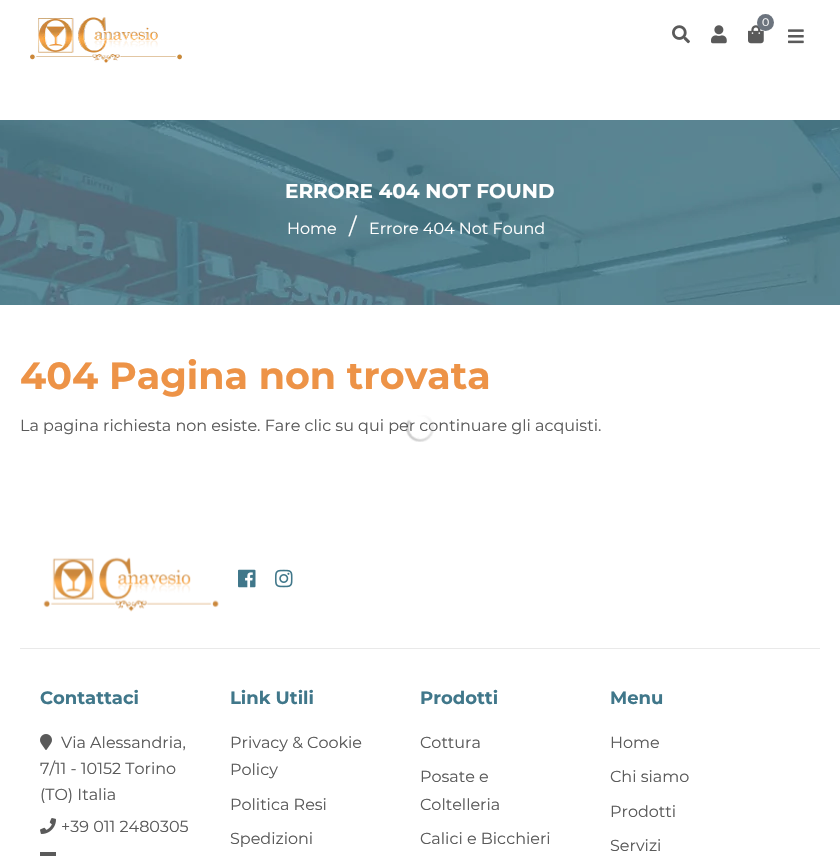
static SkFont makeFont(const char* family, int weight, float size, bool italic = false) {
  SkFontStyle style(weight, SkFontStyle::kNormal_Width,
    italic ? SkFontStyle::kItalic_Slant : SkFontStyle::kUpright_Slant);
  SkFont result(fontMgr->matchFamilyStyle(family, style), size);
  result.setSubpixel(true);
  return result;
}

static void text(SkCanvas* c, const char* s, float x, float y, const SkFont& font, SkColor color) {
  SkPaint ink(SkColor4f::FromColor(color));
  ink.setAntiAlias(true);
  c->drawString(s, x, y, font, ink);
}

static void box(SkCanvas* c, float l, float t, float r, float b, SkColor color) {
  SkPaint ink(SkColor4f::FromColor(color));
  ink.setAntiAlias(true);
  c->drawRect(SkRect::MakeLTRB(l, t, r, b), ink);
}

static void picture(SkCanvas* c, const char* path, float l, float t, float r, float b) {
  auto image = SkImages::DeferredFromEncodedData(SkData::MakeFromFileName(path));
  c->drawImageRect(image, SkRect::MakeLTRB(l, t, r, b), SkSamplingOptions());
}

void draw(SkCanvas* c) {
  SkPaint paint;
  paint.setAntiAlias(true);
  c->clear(0xffffffff);
  picture(c, "img_01.png", 30, 17, 182, 63);
  picture(c, "img_02.png", 748, 25, 764, 44);
  paint.setColor(0xff6c747e);
  c->drawCircle(765.5f, 22.5f, 8.5f, paint);
  SkFont face1 = makeFont("Montserrat", 400, 11);
  text(c, "0", 762, 26, face1, 0xffffffff);
  picture(c, "img_03.png", 672, 25, 690, 44);
  picture(c, "img_04.png", 711, 25, 727, 44);
  picture(c, "img_05.png", 788, 29, 804, 44);
  picture(c, "img_06.png", 0, 120, 840, 305);
  SkFont face2 = makeFont("Montserrat", 700, 20);
  text(c, "ERRORE 404 NOT FOUND", 285, 198, face2, 0xffffffff);
  SkFont face3 = makeFont("Montserrat", 400, 16);
  text(c, "Home", 287, 234, face3, 0xffffffff);
  SkFont face4 = makeFont("Montserrat", 400, 22);
  text(c, "/", 349, 234, face4, 0xffffffff);
  text(c, "Errore 404 Not Found", 369, 234, face3, 0xffffffff);
  SkFont face5 = makeFont("Montserrat", 700, 38);
  text(c, "404 Pagina non trovata", 20, 389, face5, 0xffed9347);
  text(c, "La pagina richiesta non esiste. Fare clic su qui per continuare gli acquisti.", 20, 431, face3, 0xff5a5a5a);
  picture(c, "img_07.png", 406, 415, 434, 442);
  box(c, 20, 648, 820, 649, 0xffe9e9e9);
  picture(c, "img_08.png", 43, 557, 219, 612);
  picture(c, "img_09.png", 238, 569, 256, 588);
  picture(c, "img_10.png", 275, 569, 293, 588);
  SkFont face6 = makeFont("Montserrat", 700, 18);
  text(c, "Contattaci", 40, 704, face6, 0xff40778a);
  picture(c, "img_11.png", 40, 734, 52, 750);
  text(c, "Via Alessandria,", 61, 748, face3, 0xff5a5a5a);
  text(c, "7/11 - 10152 Torino", 40, 774, face3, 0xff5a5a5a);
  text(c, "(TO) Italia", 40, 800, face3, 0xff5a5a5a);
  picture(c, "img_12.png", 40, 818, 56, 834);
  text(c, "+39 011 2480305", 61, 832, face3, 0xff5a5a5a);
  box(c, 40, 852, 56, 856, 0xff5a5a5a);
  text(c, "Link Utili", 230, 704, face6, 0xff40778a);
  text(c, "Privacy & Cookie", 230, 748, face3, 0xff5a5a5a);
  text(c, "Policy", 230, 775, face3, 0xff5a5a5a);
  text(c, "Politica Resi", 230, 810, face3, 0xff5a5a5a);
  text(c, "Spedizioni", 230, 844, face3, 0xff5a5a5a);
  text(c, "Prodotti", 420, 704, face6, 0xff40778a);
  text(c, "Cottura", 420, 748, face3, 0xff5a5a5a);
  text(c, "Posate e", 420, 782, face3, 0xff5a5a5a);
  text(c, "Coltelleria", 420, 810, face3, 0xff5a5a5a);
  text(c, "Calici e Bicchieri", 420, 844, face3, 0xff5a5a5a);
  text(c, "Menu", 610, 704, face6, 0xff40778a);
  text(c, "Home", 610, 748, face3, 0xff5a5a5a);
  text(c, "Chi siamo", 610, 782, face3, 0xff5a5a5a);
  text(c, "Prodotti", 610, 817, face3, 0xff5a5a5a);
  text(c, "Servizi", 610, 851, face3, 0xff5a5a5a);
}
